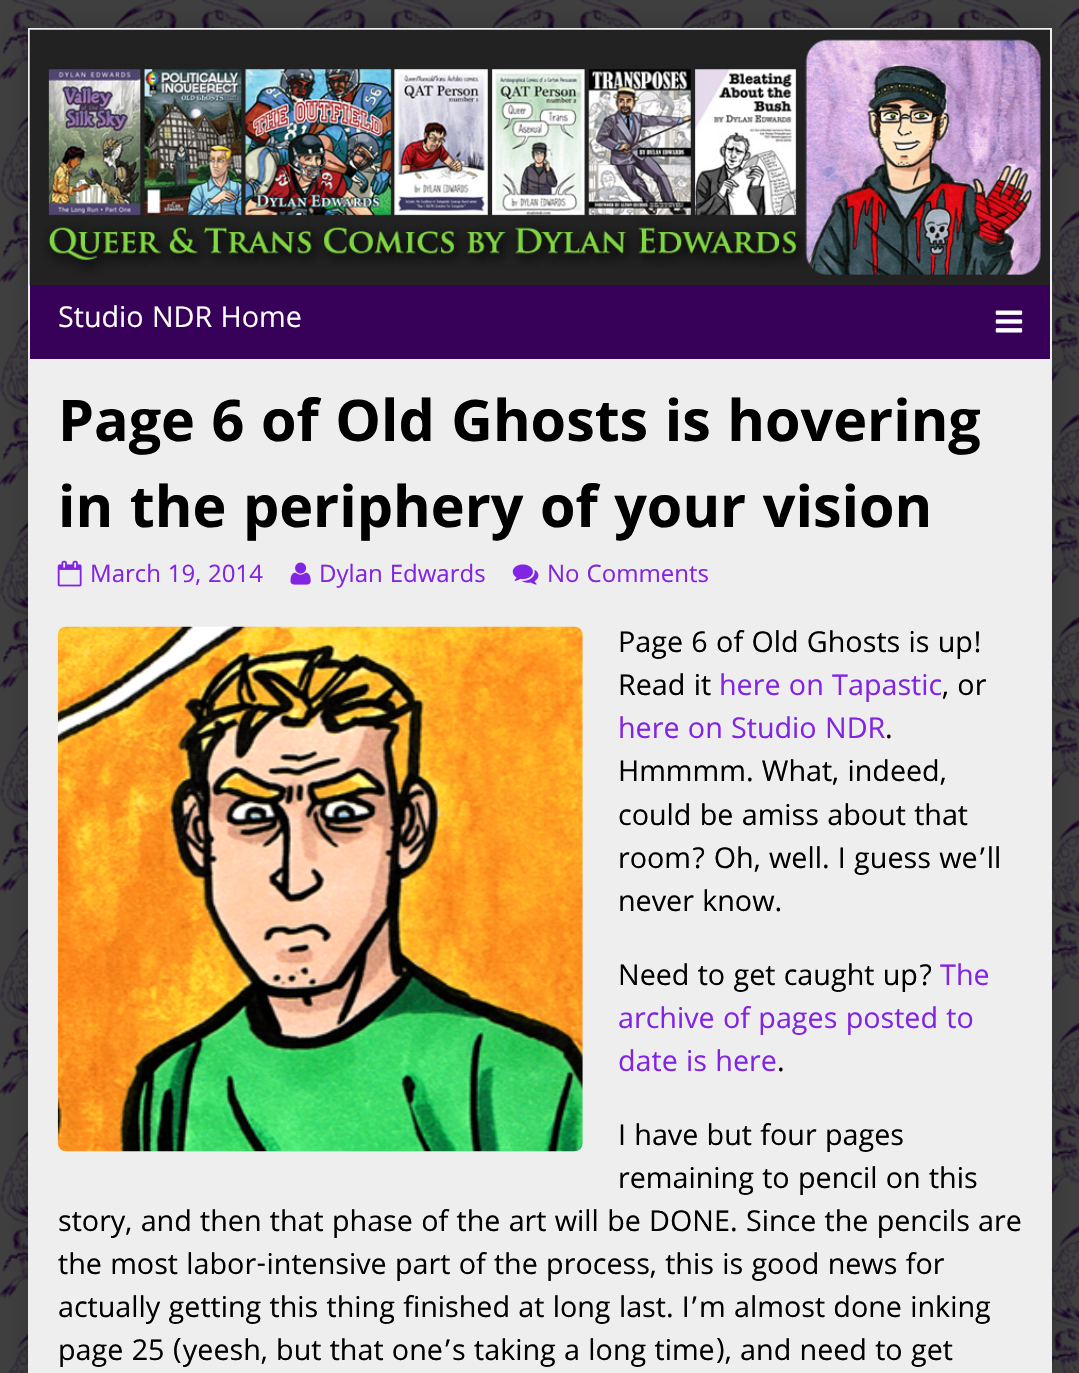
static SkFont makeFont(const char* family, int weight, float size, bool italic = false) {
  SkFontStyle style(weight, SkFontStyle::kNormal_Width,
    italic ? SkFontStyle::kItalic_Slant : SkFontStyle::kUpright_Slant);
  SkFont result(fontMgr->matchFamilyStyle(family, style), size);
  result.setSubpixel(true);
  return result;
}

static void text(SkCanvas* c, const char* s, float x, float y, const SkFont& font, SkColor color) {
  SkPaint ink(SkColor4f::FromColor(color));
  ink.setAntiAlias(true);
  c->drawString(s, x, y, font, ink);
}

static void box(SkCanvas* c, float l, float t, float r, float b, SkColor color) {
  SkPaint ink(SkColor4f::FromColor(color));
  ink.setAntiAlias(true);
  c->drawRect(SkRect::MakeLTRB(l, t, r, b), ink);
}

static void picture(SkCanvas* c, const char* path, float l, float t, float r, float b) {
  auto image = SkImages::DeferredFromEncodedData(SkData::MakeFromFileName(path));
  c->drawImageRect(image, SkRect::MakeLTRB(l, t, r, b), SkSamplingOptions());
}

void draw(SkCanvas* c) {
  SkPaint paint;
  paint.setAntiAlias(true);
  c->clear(0xffffffff);
  picture(c, "img_01.png", 0, 0, 1079, 1373);
  paint.setColor(0x33000000);
  paint.setMaskFilter(SkMaskFilter::MakeBlur(kNormal_SkBlurStyle, 14));
  c->drawRect(SkRect::MakeLTRB(28, 28, 1052, 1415), paint);
  paint.setMaskFilter(nullptr);
  box(c, 28, 28, 1052, 1373, 0xffeeeeee);
  picture(c, "img_02.png", 29, 29, 1050, 286);
  box(c, 30, 285, 1050, 359, 0xff370059);
  SkFont face1 = makeFont("Khula", 400, 30.8f);
  text(c, "Studio NDR Home", 58, 327, face1, 0xffffffff);
  picture(c, "img_03.png", 995, 310, 1023, 333);
  SkFont face2 = makeFont("Khula", 700, 61.6f);
  text(c, "Page 6 of Old Ghosts is hovering", 58, 441, face2, 0xff000000);
  text(c, "in the periphery of your vision", 58, 527, face2, 0xff000000);
  picture(c, "img_04.png", 57, 560, 82, 587);
  SkFont face3 = makeFont("Khula", 400, 25.75f);
  text(c, "March 19, 2014", 90, 582, face3, 0xff8224e3);
  picture(c, "img_05.png", 290, 562, 311, 585);
  text(c, "Dylan Edwards", 319, 582, face3, 0xff8224e3);
  picture(c, "img_06.png", 512, 564, 539, 585);
  text(c, "No Comments", 547, 582, face3, 0xff8224e3);
  picture(c, "img_07.png", 57, 626, 583, 1152);
  text(c, "Page 6 of Old Ghosts is up!", 618, 652, face1, 0xff000000);
  text(c, "Read it", 618, 695, face1, 0xff000000);
  text(c, "here on Tapastic", 719, 695, face1, 0xff8224e3);
  text(c, ", or", 942, 695, face1, 0xff000000);
  text(c, "here on Studio NDR", 618, 738, face1, 0xff8224e3);
  text(c, ".", 885, 738, face1, 0xff000000);
  text(c, "Hmmmm. What, indeed,", 618, 781, face1, 0xff000000);
  text(c, "could be amiss about that", 618, 825, face1, 0xff000000);
  text(c, "room? Oh, well. I guess we’ll", 618, 868, face1, 0xff000000);
  text(c, "never know.", 618, 911, face1, 0xff000000);
  text(c, "Need to get caught up?", 618, 985, face1, 0xff000000);
  text(c, "The", 940, 985, face1, 0xff8224e3);
  text(c, "archive of pages posted to", 618, 1028, face1, 0xff8224e3);
  text(c, "date is here", 618, 1071, face1, 0xff8224e3);
  text(c, ".", 777, 1071, face1, 0xff000000);
  text(c, "I have but four pages", 618, 1145, face1, 0xff000000);
  text(c, "remaining to pencil on this", 618, 1188, face1, 0xff000000);
  text(c, "story, and then that phase of the art will be DONE. Since the pencils are", 58, 1231, face1, 0xff000000);
  text(c, "the most labor-intensive part of the process, this is good news for", 58, 1274, face1, 0xff000000);
  text(c, "actually getting this thing finished at long last. I’m almost done inking", 58, 1317, face1, 0xff000000);
  text(c, "page 25 (yeesh, but that one’s taking a long time), and need to get", 58, 1360, face1, 0xff000000);
}
